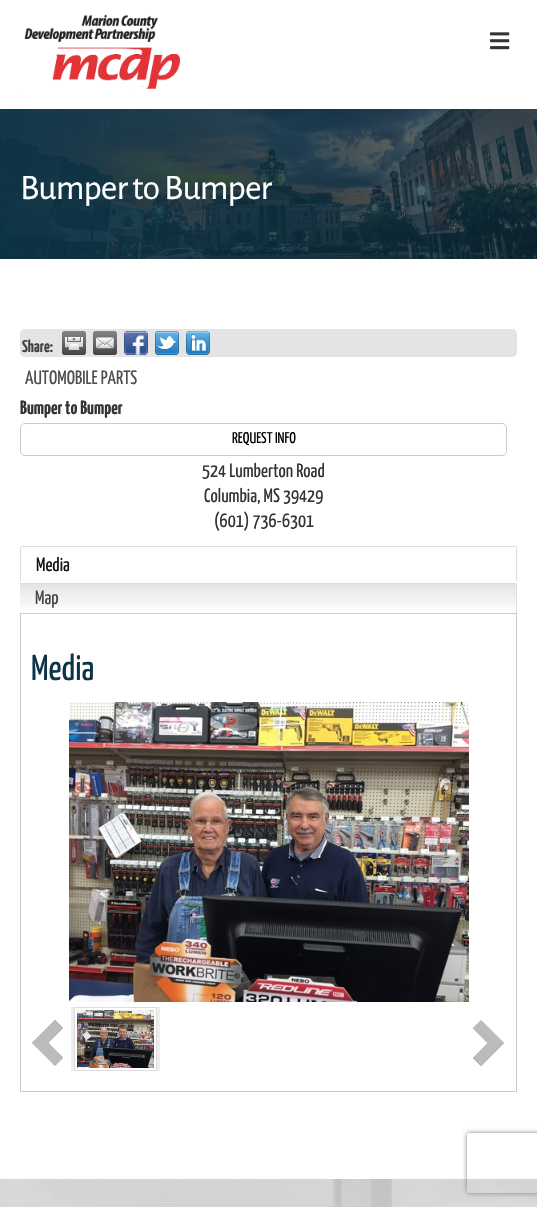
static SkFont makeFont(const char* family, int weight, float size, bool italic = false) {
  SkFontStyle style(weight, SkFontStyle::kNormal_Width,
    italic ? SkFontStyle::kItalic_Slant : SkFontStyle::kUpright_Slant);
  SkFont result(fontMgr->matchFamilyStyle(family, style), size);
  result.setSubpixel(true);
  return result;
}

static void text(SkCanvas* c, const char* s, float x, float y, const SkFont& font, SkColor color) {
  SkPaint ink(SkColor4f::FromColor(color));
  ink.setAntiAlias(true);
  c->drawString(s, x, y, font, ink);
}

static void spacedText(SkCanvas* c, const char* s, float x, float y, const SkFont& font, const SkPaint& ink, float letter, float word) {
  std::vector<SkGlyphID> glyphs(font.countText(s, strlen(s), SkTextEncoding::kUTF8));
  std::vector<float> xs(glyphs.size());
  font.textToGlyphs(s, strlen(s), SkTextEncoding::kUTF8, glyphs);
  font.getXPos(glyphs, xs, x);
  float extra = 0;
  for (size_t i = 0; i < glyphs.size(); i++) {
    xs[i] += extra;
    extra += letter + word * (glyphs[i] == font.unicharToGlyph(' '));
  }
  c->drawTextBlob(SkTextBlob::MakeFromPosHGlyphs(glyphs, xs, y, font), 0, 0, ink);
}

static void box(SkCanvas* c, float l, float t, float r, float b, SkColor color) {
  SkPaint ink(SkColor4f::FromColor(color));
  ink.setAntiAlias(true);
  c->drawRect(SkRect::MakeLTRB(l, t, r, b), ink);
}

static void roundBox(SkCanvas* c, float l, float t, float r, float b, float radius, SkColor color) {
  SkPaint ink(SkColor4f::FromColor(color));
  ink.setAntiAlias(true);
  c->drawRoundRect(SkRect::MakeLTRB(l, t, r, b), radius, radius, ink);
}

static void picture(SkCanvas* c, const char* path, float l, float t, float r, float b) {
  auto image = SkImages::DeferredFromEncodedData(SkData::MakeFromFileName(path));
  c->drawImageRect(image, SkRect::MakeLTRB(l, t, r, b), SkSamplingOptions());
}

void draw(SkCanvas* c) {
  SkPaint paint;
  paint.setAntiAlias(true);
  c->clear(0xffffffff);
  picture(c, "img_01.png", 20, 15, 180, 92);
  picture(c, "img_02.png", 490, 32, 510, 50);
  picture(c, "img_03.png", 0, 109, 537, 259);
  SkFont face1 = makeFont("Alegreya Sans", 400, 36);
  paint.setColor(0xffffffff);
  spacedText(c, "Bumper to Bumper", 20, 199, face1, paint, -1, 0);
  roundBox(c, 20, 329, 517, 357, 5, 0xffe4e4e4);
  SkFont face2 = makeFont("Yanone Kaffeesatz", 700, 17);
  text(c, "Share:", 22, 352, face2, 0xff444444);
  picture(c, "img_04.png", 62, 331, 86, 355);
  picture(c, "img_05.png", 93, 331, 117, 355);
  picture(c, "img_06.png", 124, 331, 148, 355);
  picture(c, "img_07.png", 155, 331, 179, 355);
  picture(c, "img_08.png", 186, 331, 210, 355);
  SkFont face3 = makeFont("Yanone Kaffeesatz", 400, 19.25f);
  text(c, "AUTOMOBILE PARTS", 25, 384, face3, 0xff4d4d4d);
  SkFont face4 = makeFont("Yanone Kaffeesatz", 700, 19.25f);
  text(c, "Bumper to Bumper", 20, 414, face4, 0xff333333);
  paint.setStyle(SkPaint::kStroke_Style);
  paint.setStrokeWidth(1);
  paint.setColor(0xffcccccc);
  c->drawRoundRect(SkRect::MakeLTRB(20.5f, 423.5f, 506.5f, 455.5f), 4.5f, 4.5f, paint);
  SkFont face5 = makeFont("Yanone Kaffeesatz", 400, 15.5f);
  text(c, "REQUEST INFO", 232, 443, face5, 0xff000000);
  text(c, "524 Lumberton Road", 202, 477, face3, 0xff333333);
  text(c, "Columbia, MS 39429", 204, 502, face3, 0xff333333);
  text(c, "(601) 736-6301", 214, 527, face3, 0xff333333);
  box(c, 21, 546, 516, 547, 0xffdddddd);
  box(c, 516, 547, 517, 581, 0xffdddddd);
  box(c, 20, 547, 21, 581, 0xffdddddd);
  text(c, "Media", 36, 571, face3, 0xff111111);
  paint.setStyle(SkPaint::kFill_Style);
  {
    const SkColor colors[] = {0xffe4e4e4, 0xffffffff};
    const float stops[] = {0, 1};
    const SkPoint ends[] = {{268, 584}, {268, 613}};
    paint.setShader(SkGradientShader::MakeLinear(ends, colors, stops, 2, SkTileMode::kClamp));
    paint.setAlpha(255);
  }
  c->drawPath(SkPathBuilder().moveTo(20, 584).lineTo(515, 584).cubicTo(515.5f, 584, 516, 584.5f, 516, 585).lineTo(516, 613).lineTo(20, 613).close().detach(), paint);
  box(c, 20, 583, 516, 584, 0xffdddddd);
  box(c, 516, 584, 517, 613, 0xffdddddd);
  text(c, "Map", 35, 604, face3, 0xff444444);
  paint.setStyle(SkPaint::kStroke_Style);
  paint.setShader(nullptr);
  paint.setColor(0xffcccccc);
  c->drawRect(SkRect::MakeLTRB(20.5f, 613.5f, 516.5f, 1091.5f), paint);
  SkFont face6 = makeFont("Yanone Kaffeesatz", 400, 36);
  text(c, "Media", 31, 680, face6, 0xff0c3446);
  picture(c, "img_09.png", 69, 702, 469, 1002);
  picture(c, "img_10.png", 32, 1020, 63, 1066);
  box(c, 71, 1007, 160, 1071, 0xffededed);
  paint.setStyle(SkPaint::kFill_Style);
  paint.setColor(0xffffffff);
  c->drawRect(SkRect::MakeLTRB(74.5f, 1007.5f, 156.5f, 1070.5f), paint);
  paint.setStyle(SkPaint::kStroke_Style);
  paint.setColor(0xffdddddd);
  c->drawRect(SkRect::MakeLTRB(74.5f, 1007.5f, 156.5f, 1070.5f), paint);
  picture(c, "img_11.png", 77, 1010, 154, 1068);
  picture(c, "img_12.png", 473, 1020, 504, 1066);
  picture(c, "img_13.png", 0, 1179, 537, 1207);
  c->save();
  c->clipPath(SkPathBuilder(SkPathFillType::kEvenOdd).moveTo(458, 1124).lineTo(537, 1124).lineTo(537, 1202).lineTo(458, 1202).close().moveTo(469, 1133).lineTo(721, 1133).cubicTo(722, 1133, 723, 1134, 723, 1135).lineTo(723, 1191).cubicTo(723, 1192, 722, 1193, 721, 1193).lineTo(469, 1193).cubicTo(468, 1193, 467, 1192, 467, 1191).lineTo(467, 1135).cubicTo(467, 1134, 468, 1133, 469, 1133).close().detach(), true);
  paint.setStyle(SkPaint::kFill_Style);
  paint.setColor(0xff808080);
  paint.setMaskFilter(SkMaskFilter::MakeBlur(kNormal_SkBlurStyle, 2.5f));
  c->drawRoundRect(SkRect::MakeLTRB(467, 1133, 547, 1193), 2, 2, paint);
  paint.setMaskFilter(nullptr);
  c->restore();
}
